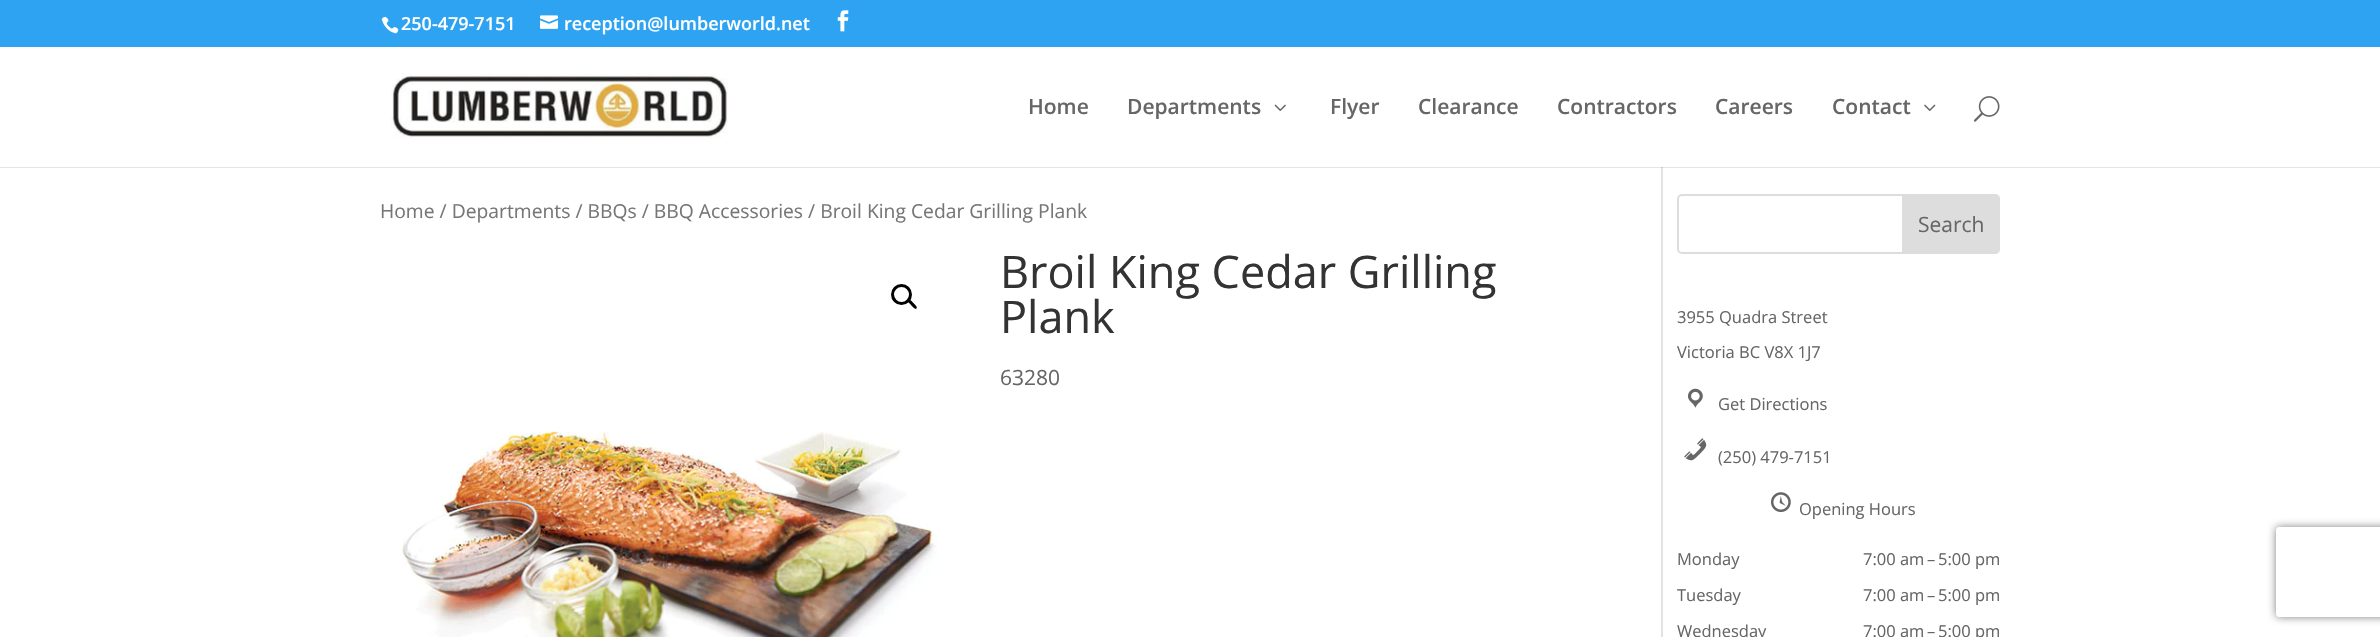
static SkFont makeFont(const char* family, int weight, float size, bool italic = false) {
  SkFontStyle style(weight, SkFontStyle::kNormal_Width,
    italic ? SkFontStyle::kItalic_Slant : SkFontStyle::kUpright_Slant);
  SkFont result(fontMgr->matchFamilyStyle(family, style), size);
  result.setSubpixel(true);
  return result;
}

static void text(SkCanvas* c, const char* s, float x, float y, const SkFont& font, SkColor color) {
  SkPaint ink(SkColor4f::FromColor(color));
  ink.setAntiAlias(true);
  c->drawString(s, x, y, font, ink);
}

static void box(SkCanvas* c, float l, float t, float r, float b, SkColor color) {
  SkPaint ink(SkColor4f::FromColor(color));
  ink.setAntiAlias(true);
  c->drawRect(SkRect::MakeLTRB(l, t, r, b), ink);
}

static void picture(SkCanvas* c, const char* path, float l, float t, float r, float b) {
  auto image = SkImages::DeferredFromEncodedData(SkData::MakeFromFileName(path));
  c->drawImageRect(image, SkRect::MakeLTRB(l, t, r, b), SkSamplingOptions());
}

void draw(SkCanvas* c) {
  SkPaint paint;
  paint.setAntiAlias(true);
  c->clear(0xffffffff);
  box(c, 0, 0, 2380, 47, 0xff2ea3f2);
  picture(c, "img_01.png", 381, 16, 399, 34);
  SkFont face1 = makeFont("Open Sans", 600, 18);
  text(c, "250-479-7151", 401, 30, face1, 0xffffffff);
  picture(c, "img_02.png", 540, 15, 558, 29);
  text(c, "reception@lumberworld.net", 564, 30, face1, 0xffffffff);
  picture(c, "img_03.png", 837, 10, 849, 32);
  box(c, 1661, 167, 1663, 637, 0xffe2e2e2);
  paint.setColor(0x1a000000);
  c->drawPath(SkPathBuilder().moveTo(0, 166).lineTo(0, 168).lineTo(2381, 168).lineTo(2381, 48).lineTo(2380, 48).lineTo(2380, 166).close().detach(), paint);
  box(c, 0, 166, 2380, 167, 0xffffffff);
  picture(c, "img_04.png", 391, 73, 728, 139);
  SkFont face2 = makeFont("Open Sans", 600, 21);
  text(c, "Home", 1028, 114, face2, 0xff666666);
  text(c, "Departments", 1127, 114, face2, 0xff666666);
  picture(c, "img_05.png", 1274, 104, 1286, 111);
  text(c, "Flyer", 1330, 114, face2, 0xff666666);
  text(c, "Clearance", 1418, 114, face2, 0xff666666);
  text(c, "Contractors", 1557, 114, face2, 0xff666666);
  text(c, "Careers", 1715, 114, face2, 0xff666666);
  text(c, "Contact", 1832, 114, face2, 0xff666666);
  picture(c, "img_06.png", 1924, 104, 1936, 111);
  picture(c, "img_07.png", 1973, 96, 2000, 122);
  SkFont face3 = makeFont("Open Sans", 400, 19.3f);
  text(c, "Home / Departments / BBQs / BBQ Accessories / Broil King Cedar Grilling Plank", 380, 218, face3, 0xff767676);
  paint.setStyle(SkPaint::kStroke_Style);
  paint.setStrokeWidth(3);
  paint.setColor(0xff000000);
  c->drawCircle(901.5f, 294.5f, 9, paint);
  paint.setStyle(SkPaint::kFill_Style);
  c->drawPath(SkPathBuilder().moveTo(908, 300).cubicTo(909.5f, 298, 912.5f, 302, 913.5f, 303).cubicTo(914, 304, 918, 306.5f, 916.5f, 308.5f).cubicTo(915, 310, 912, 306, 911, 305).cubicTo(910.5f, 304, 906.5f, 301.5f, 908, 300).close().detach(), paint);
  picture(c, "img_08.png", 401, 431, 937, 637);
  SkFont face4 = makeFont("Open Sans", 400, 45);
  text(c, "Broil King Cedar Grilling", 1000, 288, face4, 0xff333333);
  text(c, "Plank", 1000, 333, face4, 0xff333333);
  SkFont face5 = makeFont("Open Sans", 400, 21);
  text(c, "63280", 1000, 385, face5, 0xff666666);
  paint.setStyle(SkPaint::kStroke_Style);
  paint.setStrokeWidth(2);
  paint.setColor(0xffdddddd);
  c->drawRoundRect(SkRect::MakeLTRB(1678, 195, 1999, 253), 4, 4, paint);
  paint.setStyle(SkPaint::kFill_Style);
  c->drawPath(SkPathBuilder().moveTo(1903, 195).lineTo(1995, 195).cubicTo(1997, 195, 1999, 197, 1999, 199).lineTo(1999, 249).cubicTo(1999, 251, 1997, 253, 1995, 253).lineTo(1903, 253).close().detach(), paint);
  paint.setStyle(SkPaint::kStroke_Style);
  c->drawPath(SkPathBuilder().moveTo(1903, 195).lineTo(1995, 195).cubicTo(1997, 195, 1999, 197, 1999, 199).lineTo(1999, 249).cubicTo(1999, 251, 1997, 253, 1995, 253).lineTo(1903, 253).close().detach(), paint);
  text(c, "Search", 1918, 232, face5, 0xff666666);
  SkFont face6 = makeFont("Open Sans", 400, 16.5f);
  text(c, "3955 Quadra Street", 1677, 323, face6, 0xff666666);
  text(c, "Victoria BC V8X 1J7", 1677, 358, face6, 0xff666666);
  picture(c, "img_09.png", 1687, 388, 1703, 408);
  text(c, "Get Directions", 1718, 410, face6, 0xff666666);
  picture(c, "img_10.png", 1684, 438, 1707, 461);
  text(c, "(250) 479-7151", 1718, 463, face6, 0xff666666);
  picture(c, "img_11.png", 1771, 492, 1791, 512);
  text(c, "Opening Hours", 1799, 515, face6, 0xff666666);
  text(c, "Monday", 1677, 565, face6, 0xff666666);
  text(c, "7:00 am – 5:00 pm", 1863, 565, face6, 0xff666666);
  text(c, "Tuesday", 1677, 601, face6, 0xff666666);
  text(c, "7:00 am – 5:00 pm", 1863, 601, face6, 0xff666666);
  text(c, "Wednesday", 1677, 637, face6, 0xff666666);
  text(c, "7:00 am – 5:00 pm", 1863, 637, face6, 0xff666666);
  c->save();
  c->clipPath(SkPathBuilder(SkPathFillType::kEvenOdd).moveTo(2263, 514).lineTo(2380, 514).lineTo(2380, 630).lineTo(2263, 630).close().moveTo(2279, 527).lineTo(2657, 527).cubicTo(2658.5f, 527, 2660, 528.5f, 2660, 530).lineTo(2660, 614).cubicTo(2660, 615.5f, 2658.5f, 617, 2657, 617).lineTo(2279, 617).cubicTo(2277.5f, 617, 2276, 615.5f, 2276, 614).lineTo(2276, 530).cubicTo(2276, 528.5f, 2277.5f, 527, 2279, 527).close().detach(), true);
  paint.setStyle(SkPaint::kFill_Style);
  paint.setColor(0xff808080);
  paint.setMaskFilter(SkMaskFilter::MakeBlur(kNormal_SkBlurStyle, 4));
  c->drawRoundRect(SkRect::MakeLTRB(2276, 527, 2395, 617), 3, 3, paint);
  paint.setMaskFilter(nullptr);
  c->restore();
}
